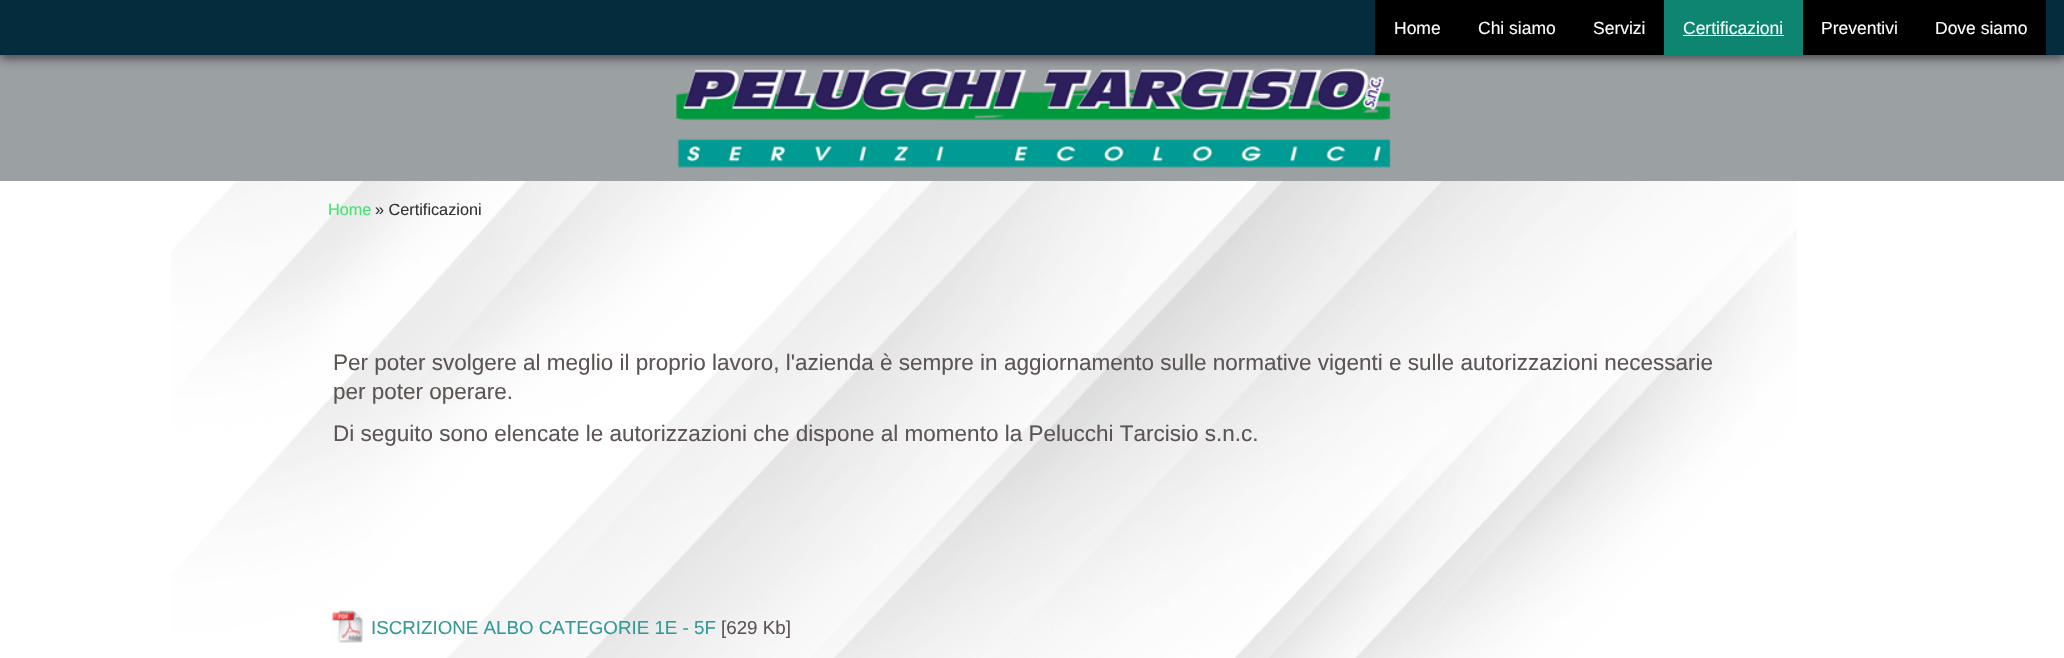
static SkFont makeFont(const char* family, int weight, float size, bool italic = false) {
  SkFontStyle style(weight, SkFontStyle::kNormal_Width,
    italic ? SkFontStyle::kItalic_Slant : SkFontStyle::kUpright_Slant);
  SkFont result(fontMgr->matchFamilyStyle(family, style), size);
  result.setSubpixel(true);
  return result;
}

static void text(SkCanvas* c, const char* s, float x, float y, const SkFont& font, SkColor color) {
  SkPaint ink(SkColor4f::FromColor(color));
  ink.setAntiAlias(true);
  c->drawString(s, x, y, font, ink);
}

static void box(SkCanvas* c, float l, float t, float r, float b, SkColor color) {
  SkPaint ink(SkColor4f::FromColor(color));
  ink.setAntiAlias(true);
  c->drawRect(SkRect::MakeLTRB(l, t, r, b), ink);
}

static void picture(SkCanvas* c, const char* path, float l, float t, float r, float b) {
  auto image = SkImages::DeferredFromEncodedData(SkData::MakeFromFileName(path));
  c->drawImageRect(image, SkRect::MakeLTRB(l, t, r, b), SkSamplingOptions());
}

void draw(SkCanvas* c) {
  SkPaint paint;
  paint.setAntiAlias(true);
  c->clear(0xffffffff);
  picture(c, "img_01.png", 171, 181, 1797, 658);
  box(c, 0, 55, 2064, 181, 0xff9ba0a3);
  picture(c, "img_02.png", 676, 68, 1391, 168);
  paint.setColor(0x99000000);
  paint.setMaskFilter(SkMaskFilter::MakeBlur(kNormal_SkBlurStyle, 5));
  c->drawRect(SkRect::MakeLTRB(0, 3, 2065, 58), paint);
  paint.setMaskFilter(nullptr);
  box(c, 0, 0, 2064, 55, 0xff052c3d);
  box(c, 1375, 0, 1664, 55, 0xff000000);
  SkFont face1 = makeFont("Liberation Sans", 400, 17.5f);
  text(c, "Home", 1394, 34, face1, 0xfff9fcfa);
  text(c, "Chi siamo", 1478, 34, face1, 0xfff9fcfa);
  text(c, "Servizi", 1593, 34, face1, 0xfff9fcfa);
  box(c, 1664, 0, 1803, 55, 0xff0d8571);
  text(c, "Certificazioni", 1683, 34, face1, 0xfff9fcfa);
  box(c, 1683, 35, 1784, 36, 0xfffcf9f9);
  box(c, 1803, 0, 2046, 55, 0xff000000);
  text(c, "Preventivi", 1821, 34, face1, 0xfff9fcfa);
  text(c, "Dove siamo", 1935, 34, face1, 0xfff9fcfa);
  SkFont face2 = makeFont("Liberation Sans", 400, 16.25f);
  text(c, "Home", 328, 215, face2, 0xff45e36f);
  text(c, "» Certificazioni", 375, 215, face2, 0xff333333);
  SkFont face3 = makeFont("Liberation Sans", 400, 22.5f);
  text(c, "Per poter svolgere al meglio il proprio lavoro, l'azienda è sempre in aggiornamento sulle normative vigenti e sulle autorizzazioni necessarie", 333, 370, face3, 0xff5d5454);
  text(c, "per poter operare.", 333, 399, face3, 0xff5d5454);
  text(c, "Di seguito sono elencate le autorizzazioni che dispone al momento la Pelucchi Tarcisio s.n.c.", 333, 441, face3, 0xff5d5454);
  picture(c, "img_03.png", 332, 610, 363, 643);
  SkFont face4 = makeFont("Liberation Sans", 400, 18.75f);
  text(c, "ISCRIZIONE ALBO CATEGORIE 1E - 5F", 371, 634, face4, 0xff339a97);
  text(c, "[629 Kb]", 721, 634, face4, 0xff5d5454);
}
